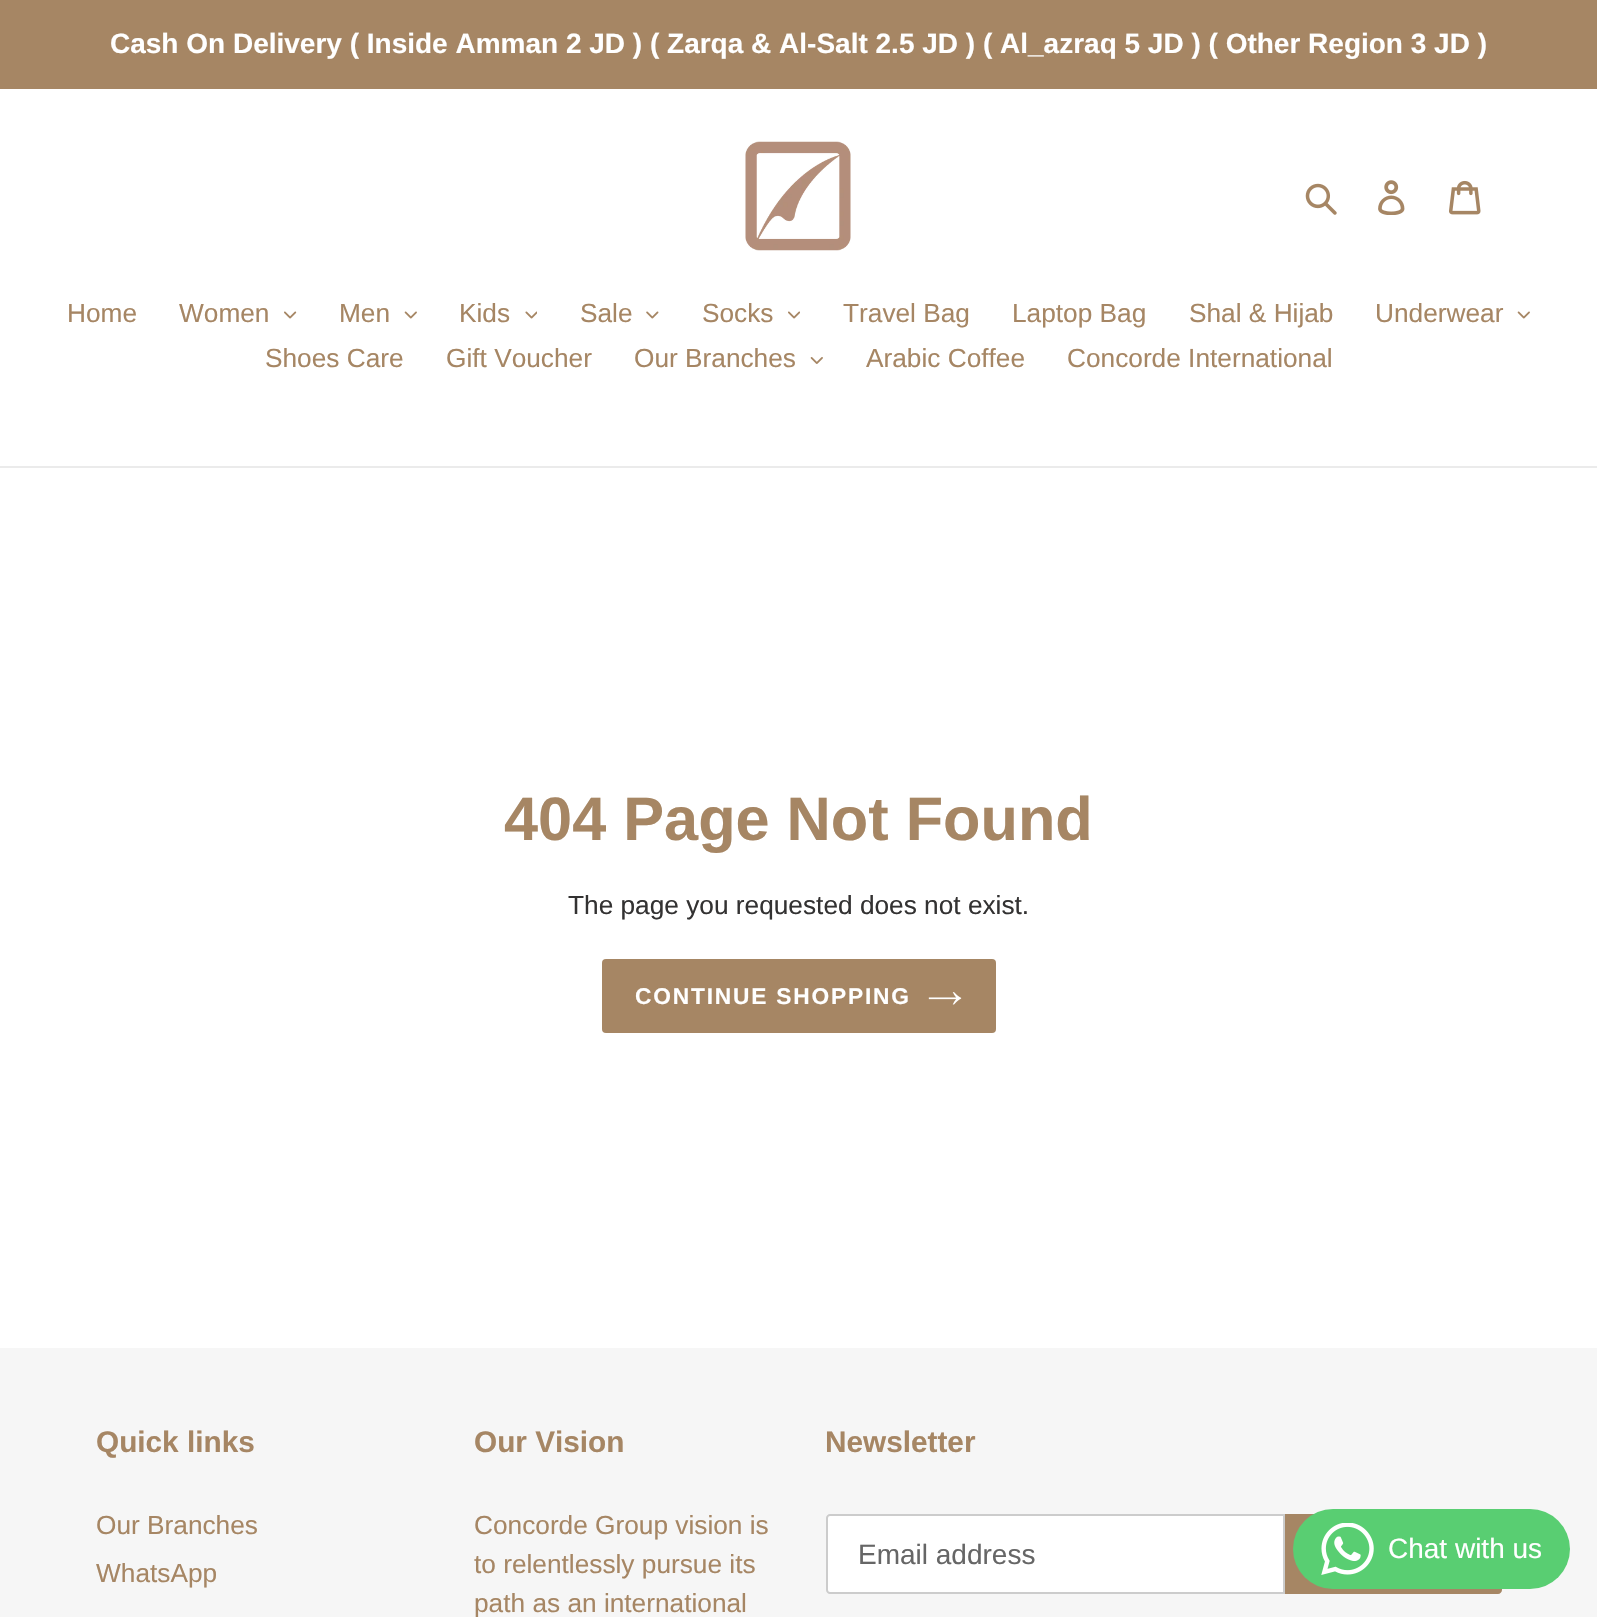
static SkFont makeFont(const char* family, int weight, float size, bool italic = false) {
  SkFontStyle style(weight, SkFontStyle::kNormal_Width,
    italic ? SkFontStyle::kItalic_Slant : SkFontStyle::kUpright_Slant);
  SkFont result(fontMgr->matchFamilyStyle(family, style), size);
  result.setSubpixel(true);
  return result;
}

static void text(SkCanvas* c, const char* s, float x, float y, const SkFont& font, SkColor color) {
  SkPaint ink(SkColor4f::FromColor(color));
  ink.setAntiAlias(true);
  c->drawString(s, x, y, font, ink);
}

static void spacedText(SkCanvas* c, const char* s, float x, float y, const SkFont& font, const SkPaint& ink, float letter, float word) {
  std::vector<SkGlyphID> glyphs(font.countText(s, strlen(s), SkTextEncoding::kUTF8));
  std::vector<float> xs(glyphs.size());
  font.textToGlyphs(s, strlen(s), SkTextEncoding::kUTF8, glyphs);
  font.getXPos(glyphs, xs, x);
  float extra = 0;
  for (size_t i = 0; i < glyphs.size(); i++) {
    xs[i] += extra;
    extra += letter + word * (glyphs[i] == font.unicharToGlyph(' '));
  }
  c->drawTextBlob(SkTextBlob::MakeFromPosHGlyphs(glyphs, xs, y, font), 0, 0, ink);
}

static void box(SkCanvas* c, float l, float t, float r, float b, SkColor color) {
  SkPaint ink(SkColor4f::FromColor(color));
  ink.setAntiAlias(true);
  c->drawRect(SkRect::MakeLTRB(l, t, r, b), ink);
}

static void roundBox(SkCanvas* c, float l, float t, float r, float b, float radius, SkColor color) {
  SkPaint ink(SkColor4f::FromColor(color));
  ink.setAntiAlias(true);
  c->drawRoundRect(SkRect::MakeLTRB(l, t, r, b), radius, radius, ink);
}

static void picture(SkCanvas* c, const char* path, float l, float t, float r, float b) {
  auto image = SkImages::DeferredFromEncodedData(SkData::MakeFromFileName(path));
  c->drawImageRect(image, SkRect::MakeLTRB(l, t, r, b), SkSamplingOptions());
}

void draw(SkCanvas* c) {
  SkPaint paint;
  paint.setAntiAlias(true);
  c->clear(0xffffffff);
  box(c, 0, 0, 1597, 89, 0xffa68664);
  SkFont face1 = makeFont("Liberation Sans", 700, 28);
  text(c, "Cash On Delivery ( Inside Amman 2 JD ) ( Zarqa & Al-Salt 2.5 JD ) ( Al_azraq 5 JD ) ( Other Region 3 JD )", 110, 53, face1, 0xffffffff);
  picture(c, "img_01.png", 745, 141, 851, 251);
  picture(c, "img_02.png", 1305, 183, 1337, 215);
  picture(c, "img_03.png", 1378, 180, 1405, 215);
  picture(c, "img_04.png", 1449, 180, 1481, 215);
  box(c, 0, 466, 1597, 468, 0xffebebeb);
  SkFont face2 = makeFont("Liberation Sans", 400, 26.25f);
  text(c, "Home", 67, 322, face2, 0xffa68664);
  text(c, "Women", 179, 322, face2, 0xffa68664);
  picture(c, "img_05.png", 284, 311, 297, 319);
  text(c, "Men", 339, 322, face2, 0xffa68664);
  picture(c, "img_06.png", 404, 311, 417, 319);
  text(c, "Kids", 459, 322, face2, 0xffa68664);
  picture(c, "img_07.png", 525, 311, 537, 319);
  text(c, "Sale", 580, 322, face2, 0xffa68664);
  picture(c, "img_08.png", 646, 311, 659, 319);
  text(c, "Socks", 702, 322, face2, 0xffa68664);
  picture(c, "img_09.png", 788, 311, 800, 319);
  text(c, "Travel Bag", 843, 322, face2, 0xffa68664);
  text(c, "Laptop Bag", 1012, 322, face2, 0xffa68664);
  text(c, "Shal & Hijab", 1189, 322, face2, 0xffa68664);
  text(c, "Underwear", 1375, 322, face2, 0xffa68664);
  picture(c, "img_06.png", 1517, 311, 1530, 319);
  text(c, "Shoes Care", 265, 367, face2, 0xffa68664);
  text(c, "Gift Voucher", 446, 367, face2, 0xffa68664);
  text(c, "Our Branches", 634, 367, face2, 0xffa68664);
  picture(c, "img_10.png", 810, 357, 823, 364);
  text(c, "Arabic Coffee", 866, 367, face2, 0xffa68664);
  text(c, "Concorde International", 1067, 367, face2, 0xffa68664);
  SkFont face3 = makeFont("Liberation Sans", 700, 61.25f);
  text(c, "404 Page Not Found", 504, 840, face3, 0xffa68664);
  text(c, "The page you requested does not exist.", 568, 914, face2, 0xff333232);
  roundBox(c, 602, 959, 996, 1033, 4, 0xffa68664);
  SkFont face4 = makeFont("Liberation Sans", 700, 22.75f);
  paint.setColor(0xffffffff);
  spacedText(c, "CONTINUE SHOPPING", 635, 1004, face4, paint, 1.8f, 0);
  picture(c, "img_11.png", 928, 992, 962, 1005);
  box(c, 0, 1348, 1597, 1617, 0xfff6f6f6);
  SkFont face5 = makeFont("Liberation Sans", 700, 29.75f);
  text(c, "Quick links", 96, 1452, face5, 0xffa68664);
  text(c, "Our Branches", 96, 1534, face2, 0xffa68664);
  text(c, "WhatsApp", 96, 1582, face2, 0xffa68664);
  text(c, "Our Vision", 474, 1452, face5, 0xffa68664);
  text(c, "Concorde Group vision is", 474, 1534, face2, 0xffa68664);
  text(c, "to relentlessly pursue its", 474, 1573, face2, 0xffa68664);
  text(c, "path as an international", 474, 1612, face2, 0xffa68664);
  text(c, "Newsletter", 825, 1452, face5, 0xffa68664);
  c->drawPath(SkPathBuilder().moveTo(830, 1515).lineTo(1284, 1515).lineTo(1284, 1593).lineTo(830, 1593).cubicTo(828.5f, 1593, 827, 1591.5f, 827, 1590).lineTo(827, 1518).cubicTo(827, 1516.5f, 828.5f, 1515, 830, 1515).close().detach(), paint);
  paint.setStyle(SkPaint::kStroke_Style);
  paint.setStrokeWidth(2);
  paint.setColor(0xffcccccc);
  c->drawPath(SkPathBuilder().moveTo(830, 1515).lineTo(1284, 1515).lineTo(1284, 1593).lineTo(830, 1593).cubicTo(828.5f, 1593, 827, 1591.5f, 827, 1590).lineTo(827, 1518).cubicTo(827, 1516.5f, 828.5f, 1515, 830, 1515).close().detach(), paint);
  SkFont face6 = makeFont("Liberation Sans", 400, 28);
  text(c, "Email address", 858, 1564, face6, 0xff666666);
  paint.setStyle(SkPaint::kFill_Style);
  paint.setColor(0xffa68664);
  c->drawPath(SkPathBuilder().moveTo(1285, 1514).lineTo(1498, 1514).cubicTo(1500, 1514, 1502, 1516, 1502, 1518).lineTo(1502, 1590).cubicTo(1502, 1592, 1500, 1594, 1498, 1594).lineTo(1285, 1594).close().detach(), paint);
  roundBox(c, 1293, 1509, 1570, 1589, 40, 0xff59ce72);
  picture(c, "img_12.png", 1321, 1523, 1374, 1575);
  text(c, "Chat with us", 1388, 1558, face6, 0xffffffff);
}
